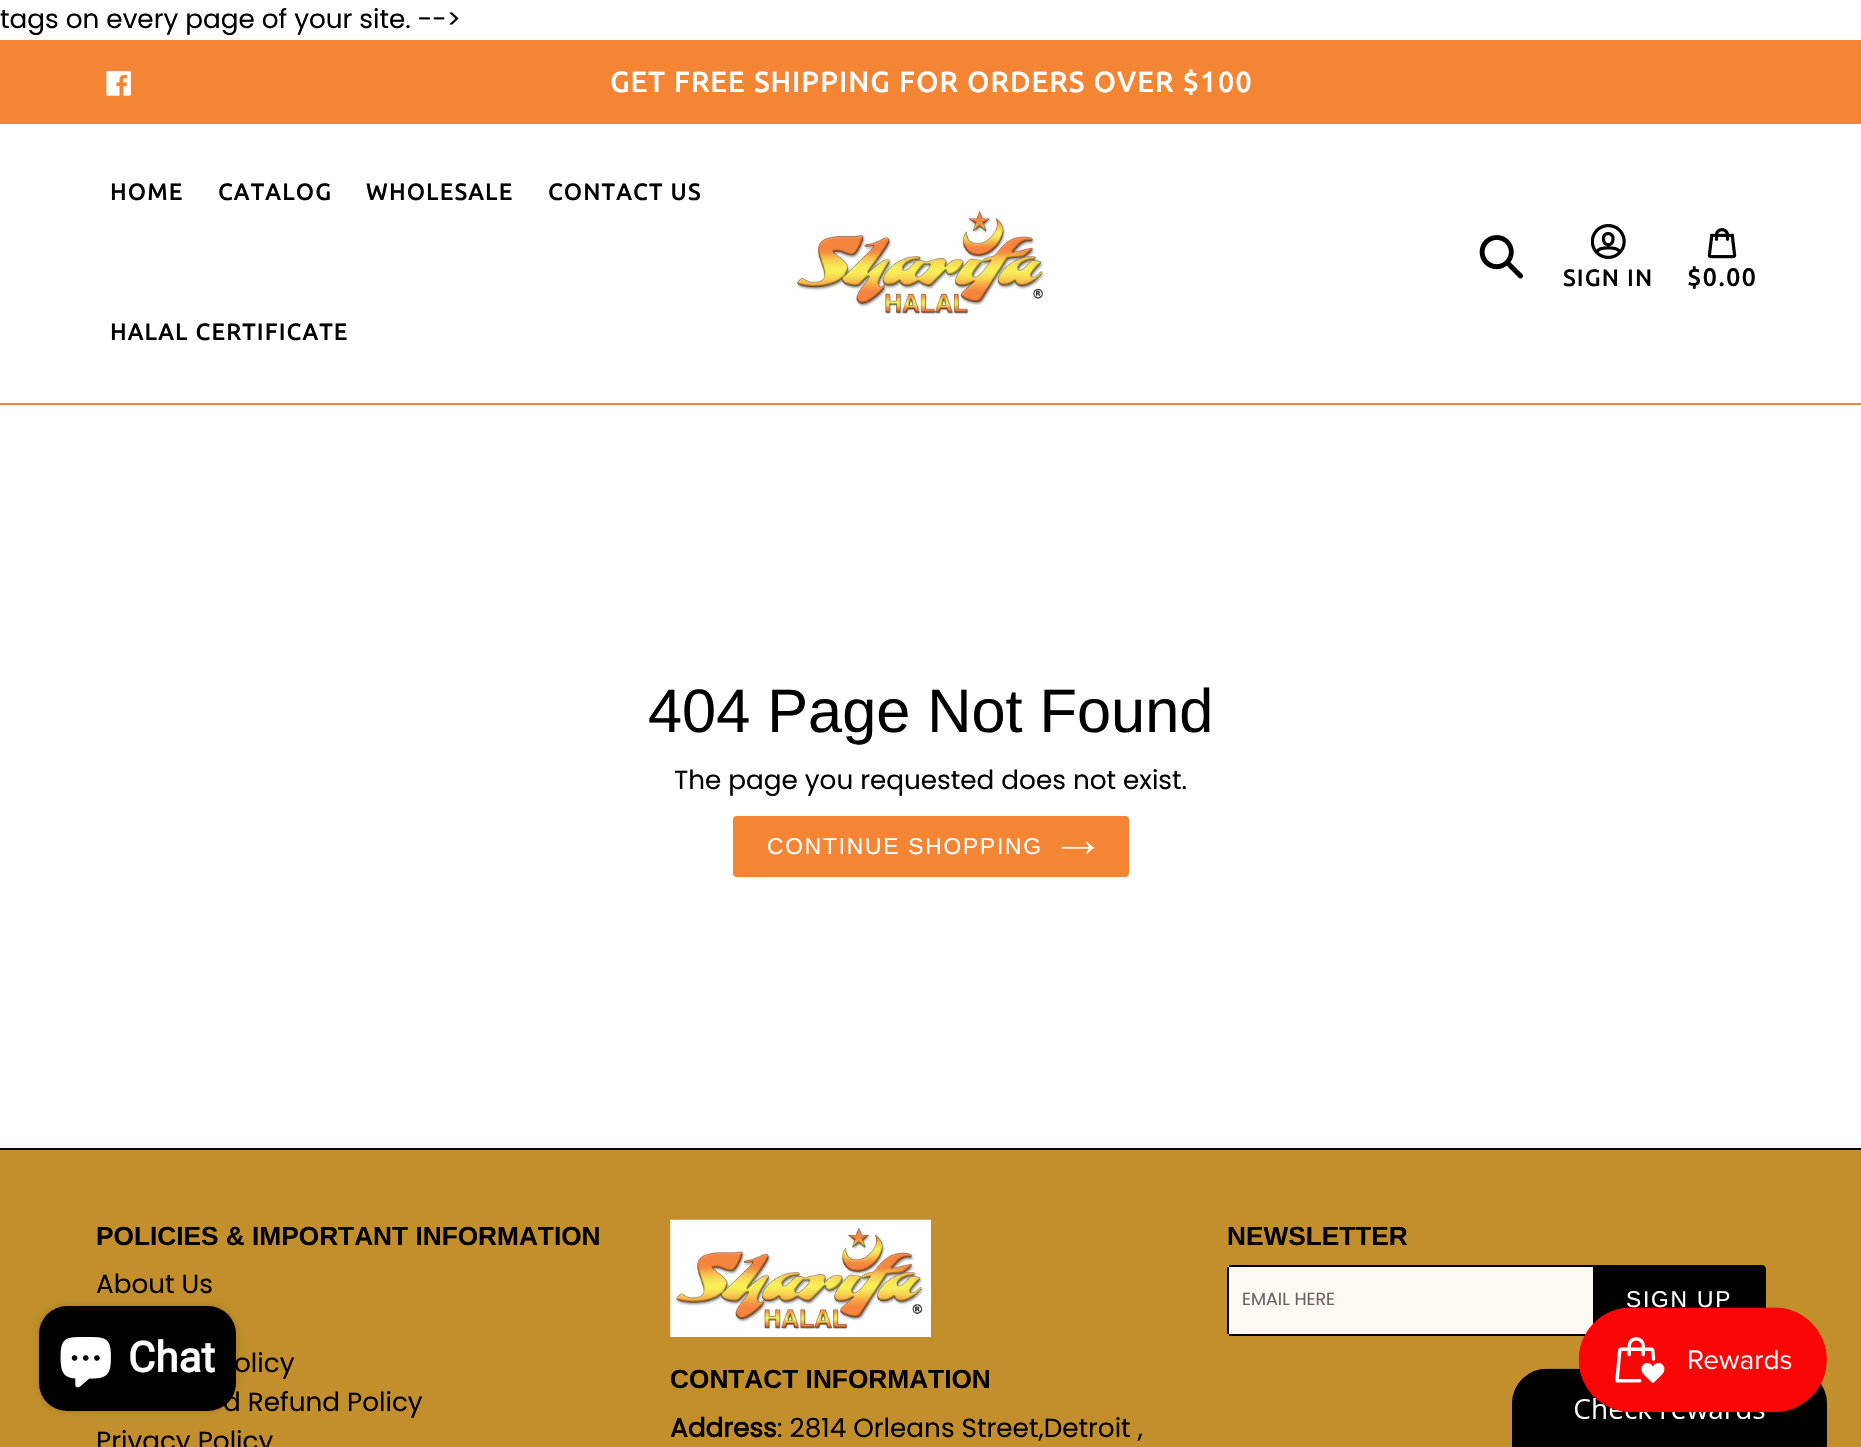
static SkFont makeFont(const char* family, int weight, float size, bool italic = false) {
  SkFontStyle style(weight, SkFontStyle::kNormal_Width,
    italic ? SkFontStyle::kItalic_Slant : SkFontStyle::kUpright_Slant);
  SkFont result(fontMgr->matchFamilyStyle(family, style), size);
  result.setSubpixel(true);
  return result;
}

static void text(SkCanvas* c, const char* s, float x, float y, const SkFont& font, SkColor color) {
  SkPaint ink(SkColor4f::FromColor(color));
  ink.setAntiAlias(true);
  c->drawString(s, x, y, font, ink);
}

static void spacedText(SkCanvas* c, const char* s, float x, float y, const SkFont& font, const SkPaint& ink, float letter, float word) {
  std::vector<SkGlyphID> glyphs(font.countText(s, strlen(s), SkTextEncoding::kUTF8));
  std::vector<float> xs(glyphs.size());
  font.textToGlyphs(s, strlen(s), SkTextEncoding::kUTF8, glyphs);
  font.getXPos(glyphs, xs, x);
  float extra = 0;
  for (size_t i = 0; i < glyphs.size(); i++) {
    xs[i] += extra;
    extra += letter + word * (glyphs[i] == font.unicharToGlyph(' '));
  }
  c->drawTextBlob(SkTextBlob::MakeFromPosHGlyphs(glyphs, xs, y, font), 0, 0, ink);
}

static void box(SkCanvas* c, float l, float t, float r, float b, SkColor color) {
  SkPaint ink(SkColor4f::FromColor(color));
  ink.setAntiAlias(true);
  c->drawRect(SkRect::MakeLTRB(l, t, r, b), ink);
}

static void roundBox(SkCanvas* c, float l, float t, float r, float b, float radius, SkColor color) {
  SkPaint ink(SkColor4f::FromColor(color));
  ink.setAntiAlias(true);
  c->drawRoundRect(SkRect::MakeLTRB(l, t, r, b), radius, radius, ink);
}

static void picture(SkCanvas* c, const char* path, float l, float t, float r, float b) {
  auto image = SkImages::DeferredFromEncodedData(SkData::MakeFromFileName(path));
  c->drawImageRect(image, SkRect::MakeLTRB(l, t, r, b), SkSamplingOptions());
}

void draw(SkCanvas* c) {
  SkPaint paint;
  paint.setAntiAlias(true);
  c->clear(0xffffffff);
  SkFont face1 = makeFont("Poppins", 400, 26.25f);
  text(c, "tags on every page of your site. -->", 0, 28, face1, 0xff000000);
  box(c, 0, 40, 1861, 124, 0xfff38535);
  picture(c, "img_01.png", 106, 71, 131, 96);
  SkFont face2 = makeFont("Ubuntu", 700, 28);
  paint.setColor(0xffffffff);
  spacedText(c, "GET FREE SHIPPING FOR ORDERS OVER $100", 610, 92, face2, paint, 1.75f, 0);
  box(c, 0, 403, 1861, 405, 0xfff38535);
  SkFont face3 = makeFont("Ubuntu", 700, 22.75f);
  paint.setColor(0xff000000);
  spacedText(c, "HOME", 110, 200, face3, paint, 1.75f, 0);
  spacedText(c, "CATALOG", 218, 200, face3, paint, 1.75f, 0);
  spacedText(c, "WHOLESALE", 366, 200, face3, paint, 1.75f, 0);
  spacedText(c, "CONTACT US", 548, 200, face3, paint, 1.75f, 0);
  spacedText(c, "HALAL CERTIFICATE", 110, 340, face3, paint, 1.75f, 0);
  picture(c, "img_02.png", 796, 209, 1046, 315);
  picture(c, "img_03.png", 1479, 235, 1523, 279);
  picture(c, "img_04.png", 1591, 224, 1626, 259);
  spacedText(c, "SIGN IN", 1563, 286, face3, paint, 1.75f, 0);
  picture(c, "img_05.png", 1707, 228, 1737, 259);
  SkFont face4 = makeFont("Ubuntu", 700, 24.5f);
  spacedText(c, "$0.00", 1687, 286, face4, paint, 1.75f, 0);
  SkFont face5 = makeFont("Liberation Sans", 400, 61.25f);
  text(c, "404 Page Not Found", 648, 732, face5, 0xff000000);
  text(c, "The page you requested does not exist.", 674, 789, face1, 0xff000000);
  roundBox(c, 733, 816, 1129, 877, 4, 0xfff38535);
  SkFont face6 = makeFont("Liberation Sans", 400, 22.75f);
  paint.setColor(0xffffffff);
  spacedText(c, "CONTINUE SHOPPING", 767, 854, face6, paint, 1.8f, 0);
  picture(c, "img_06.png", 1061, 841, 1095, 854);
  box(c, 0, 1150, 1861, 1447, 0xffc28f2c);
  box(c, 0, 1148, 1861, 1150, 0xff000000);
  SkFont face7 = makeFont("Liberation Sans", 700, 26.25f);
  text(c, "POLICIES & IMPORTANT INFORMATION", 96, 1245, face7, 0xff000000);
  text(c, "About Us", 96, 1293, face1, 0xff000000);
  text(c, "olicy", 234, 1372, face1, 0xff000000);
  text(c, "d Refund Policy", 223, 1411, face1, 0xff000000);
  text(c, "Privacy Policy", 96, 1450, face1, 0xff000000);
  text(c, "NEWSLETTER", 1227, 1245, face7, 0xff000000);
  paint.setColor(0xfffff8f3);
  c->drawPath(SkPathBuilder().moveTo(1231, 1265).lineTo(1593, 1265).lineTo(1593, 1335).lineTo(1231, 1335).cubicTo(1229, 1335, 1227, 1333, 1227, 1331).lineTo(1227, 1269).cubicTo(1227, 1267, 1229, 1265, 1231, 1265).close().detach(), paint);
  box(c, 1229, 1265, 1593, 1267, 0xff000000);
  box(c, 1229, 1334, 1593, 1336, 0xff000000);
  box(c, 1227, 1267, 1229, 1334, 0xff000000);
  SkFont face8 = makeFont("Poppins", 400, 17.5f);
  text(c, "EMAIL HERE", 1242, 1305, face8, 0xff666361);
  paint.setColor(0xff000000);
  c->drawPath(SkPathBuilder().moveTo(1593, 1265).lineTo(1762, 1265).cubicTo(1764, 1265, 1766, 1267, 1766, 1269).lineTo(1766, 1331).cubicTo(1766, 1333, 1764, 1335, 1762, 1335).lineTo(1593, 1335).close().detach(), paint);
  paint.setColor(0xffffffff);
  spacedText(c, "SIGN UP", 1626, 1307, face6, paint, 1.8f, 0);
  picture(c, "img_07.png", 670, 1219, 931, 1337);
  text(c, "CONTACT INFORMATION", 670, 1388, face7, 0xff000000);
  SkFont face9 = makeFont("Poppins", 700, 26.25f);
  text(c, "Address", 670, 1437, face9, 0xff000000);
  text(c, ": 2814 Orleans Street,Detroit ,", 777, 1437, face1, 0xff000000);
  paint.setColor(0x26000000);
  paint.setMaskFilter(SkMaskFilter::MakeBlur(kNormal_SkBlurStyle, 4.5f));
  c->drawRoundRect(SkRect::MakeLTRB(39, 1306, 236, 1411), 28, 28, paint);
  paint.setMaskFilter(nullptr);
  roundBox(c, 39, 1306, 236, 1411, 28, 0xff000000);
  picture(c, "img_08.png", 60, 1337, 111, 1388);
  SkFont face10 = makeFont("Roboto", 700, 42);
  text(c, "Chat", 128, 1372, face10, 0xffffffff);
  picture(c, "img_10.png", 1512, 1368, 1827, 1447);
  picture(c, "img_09.png", 1578, 1307, 1827, 1412);
}
